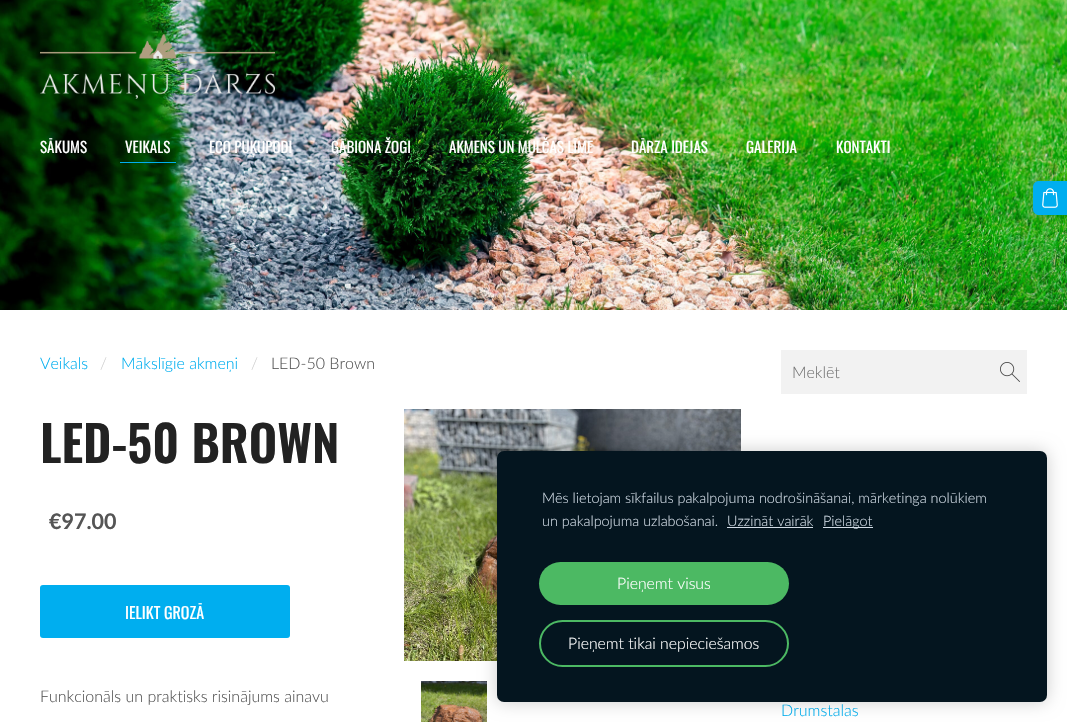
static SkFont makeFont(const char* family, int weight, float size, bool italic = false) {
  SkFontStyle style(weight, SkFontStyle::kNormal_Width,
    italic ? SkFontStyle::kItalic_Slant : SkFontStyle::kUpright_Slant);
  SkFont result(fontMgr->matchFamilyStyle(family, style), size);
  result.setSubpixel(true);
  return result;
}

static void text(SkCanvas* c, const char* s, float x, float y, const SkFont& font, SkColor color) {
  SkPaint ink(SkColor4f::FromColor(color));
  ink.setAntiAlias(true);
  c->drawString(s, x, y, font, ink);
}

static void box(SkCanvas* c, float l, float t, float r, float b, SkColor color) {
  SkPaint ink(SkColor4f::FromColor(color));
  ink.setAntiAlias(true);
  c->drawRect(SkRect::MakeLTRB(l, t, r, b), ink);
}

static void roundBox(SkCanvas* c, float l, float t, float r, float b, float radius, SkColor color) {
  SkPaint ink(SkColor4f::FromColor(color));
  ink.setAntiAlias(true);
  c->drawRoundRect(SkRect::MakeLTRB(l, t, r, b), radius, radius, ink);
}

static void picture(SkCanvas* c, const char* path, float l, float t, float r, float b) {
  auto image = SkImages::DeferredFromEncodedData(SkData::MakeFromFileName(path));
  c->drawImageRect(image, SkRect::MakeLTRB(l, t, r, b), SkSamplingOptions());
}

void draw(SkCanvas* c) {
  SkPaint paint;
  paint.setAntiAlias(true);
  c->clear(0xffffffff);
  picture(c, "img_01.png", 0, 0, 1067, 310);
  picture(c, "img_02.png", 40, 34, 275, 99);
  SkFont face1 = makeFont("Oswald", 400, 15);
  text(c, "SĀKUMS", 40, 153, face1, 0xffffffff);
  box(c, 120, 162, 176, 163, 0xff00aeef);
  text(c, "VEIKALS", 125, 153, face1, 0xffffffff);
  text(c, "ECO PUĶUPODI", 209, 153, face1, 0xffffffff);
  text(c, "GABIONA ŽOGI", 331, 153, face1, 0xffffffff);
  text(c, "AKMENS UN MULČAS LĪME", 449, 153, face1, 0xffffffff);
  text(c, "DĀRZA IDEJAS", 631, 153, face1, 0xffffffff);
  text(c, "GALERIJA", 746, 153, face1, 0xffffffff);
  text(c, "KONTAKTI", 836, 153, face1, 0xffffffff);
  paint.setColor(0x1a000000);
  paint.setMaskFilter(SkMaskFilter::MakeBlur(kNormal_SkBlurStyle, 2.5f));
  c->drawRoundRect(SkRect::MakeLTRB(1030, 180, 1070, 220), 9, 9, paint);
  paint.setMaskFilter(nullptr);
  paint.setColor(0xff00aeef);
  c->drawPath(SkPathBuilder().moveTo(1039, 181).lineTo(1067, 181).lineTo(1067, 215).lineTo(1039, 215).cubicTo(1035.5f, 215, 1033, 212.5f, 1033, 209).lineTo(1033, 187).cubicTo(1033, 183.5f, 1035.5f, 181, 1039, 181).close().detach(), paint);
  picture(c, "img_03.png", 1042, 188, 1058, 208);
  SkFont face2 = makeFont("Lato", 300, 16);
  text(c, "Veikals", 40, 369, face2, 0xff00aeef);
  text(c, "/", 100, 369, face2, 0xffcccccc);
  text(c, "Mākslīgie akmeņi", 121, 369, face2, 0xff00aeef);
  text(c, "/", 251, 369, face2, 0xffcccccc);
  text(c, "LED-50 Brown", 271, 369, face2, 0xff555555);
  SkFont face3 = makeFont("Oswald", 600, 49.5f);
  text(c, "LED-50 BROWN", 40, 463, face3, 0xff222222);
  SkFont face4 = makeFont("Lato", 700, 21.5f);
  text(c, "€97.00", 49, 529, face4, 0xff555555);
  roundBox(c, 40, 585, 290, 638, 3, 0xff00aeef);
  SkFont face5 = makeFont("Oswald", 400, 16);
  text(c, "IELIKT GROZĀ", 125, 619, face5, 0xffffffff);
  text(c, "Funkcionāls un praktisks risinājums ainavu", 40, 702, face2, 0xff555555);
  picture(c, "img_04.png", 404, 409, 741, 661);
  picture(c, "img_05.png", 421, 681, 487, 722);
  box(c, 781, 350, 1027, 394, 0xfff2f2f2);
  text(c, "Meklēt", 792, 378, face2, 0xff757575);
  picture(c, "img_06.png", 1000, 362, 1020, 382);
  text(c, "Drumstalas", 781, 716, face2, 0xff00aeef);
  paint.setColor(0x33000000);
  paint.setMaskFilter(SkMaskFilter::MakeBlur(kNormal_SkBlurStyle, 8.5f));
  c->drawRoundRect(SkRect::MakeLTRB(497, 451, 1047, 702), 7, 7, paint);
  paint.setMaskFilter(nullptr);
  roundBox(c, 497, 451, 1047, 702, 7, 0xff04151f);
  SkFont face6 = makeFont("Lato", 300, 14.4f);
  text(c, "Mēs lietojam sīkfailus pakalpojuma nodrošināšanai, mārketinga nolūkiem", 542, 503, face6, 0xffd2dce6);
  text(c, "un pakalpojuma uzlabošanai.", 542, 526, face6, 0xffd2dce6);
  text(c, "Uzzināt vairāk", 727, 526, face6, 0xffd2dce6);
  box(c, 727, 527, 813, 528, 0xffd2dce6);
  box(c, 823, 527, 873, 528, 0xffd2dce6);
  text(c, "Pielāgot", 823, 526, face6, 0xffd2dce6);
  roundBox(c, 539, 562, 789, 605, 21.5f, 0xff4cb963);
  SkFont face7 = makeFont("Lato", 300, 15.8f);
  text(c, "Pieņemt visus", 617, 589, face7, 0xffffffff);
  paint.setStyle(SkPaint::kStroke_Style);
  paint.setStrokeWidth(2);
  paint.setColor(0xff4cb963);
  c->drawRoundRect(SkRect::MakeLTRB(540, 621, 788, 666), 22.5f, 22.5f, paint);
  text(c, "Pieņemt tikai nepieciešamos", 568, 649, face7, 0xffffffff);
}
